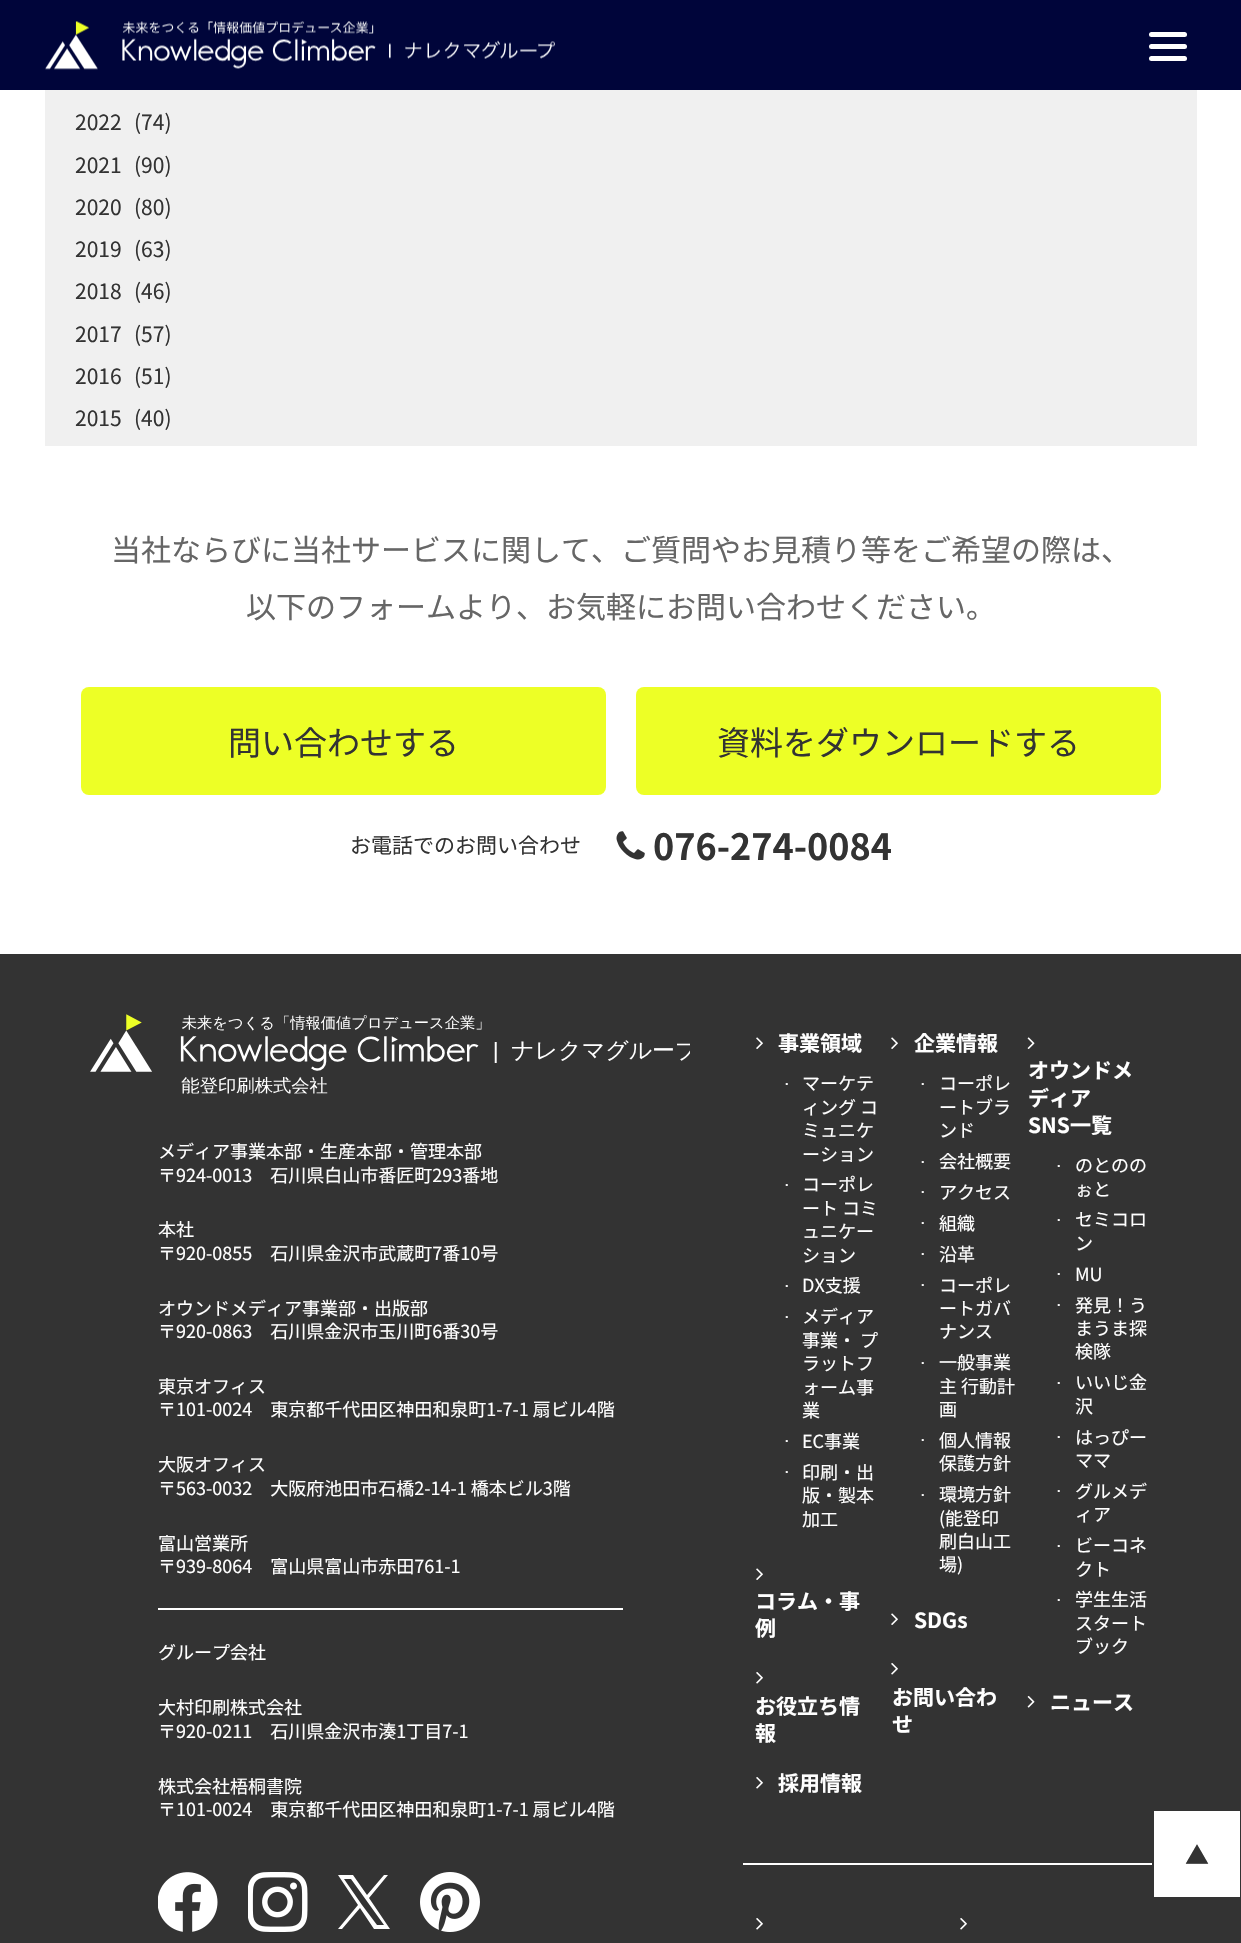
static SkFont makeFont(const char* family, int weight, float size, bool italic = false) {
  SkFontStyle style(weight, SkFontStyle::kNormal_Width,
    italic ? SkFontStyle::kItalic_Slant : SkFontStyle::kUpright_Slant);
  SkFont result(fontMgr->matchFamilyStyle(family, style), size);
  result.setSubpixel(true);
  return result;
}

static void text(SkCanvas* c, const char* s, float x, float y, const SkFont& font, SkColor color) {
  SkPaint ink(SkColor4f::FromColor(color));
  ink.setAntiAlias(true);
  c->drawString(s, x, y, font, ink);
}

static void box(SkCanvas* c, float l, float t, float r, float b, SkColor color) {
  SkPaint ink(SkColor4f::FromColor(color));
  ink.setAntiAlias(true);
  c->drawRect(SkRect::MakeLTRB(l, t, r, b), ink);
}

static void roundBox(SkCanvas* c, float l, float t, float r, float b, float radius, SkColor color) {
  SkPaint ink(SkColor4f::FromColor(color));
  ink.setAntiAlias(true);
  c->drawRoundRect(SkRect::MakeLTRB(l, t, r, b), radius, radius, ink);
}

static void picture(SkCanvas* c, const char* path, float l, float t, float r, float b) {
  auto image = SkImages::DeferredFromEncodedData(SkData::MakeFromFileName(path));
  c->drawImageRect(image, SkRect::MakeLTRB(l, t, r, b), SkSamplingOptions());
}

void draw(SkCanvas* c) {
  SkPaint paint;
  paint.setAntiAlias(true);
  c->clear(0xffffffff);
  box(c, 0, 0, 1241, 90, 0xff00053a);
  picture(c, "img_01.png", 45, 21, 555, 70);
  roundBox(c, 1149, 44, 1187, 49, 2.5f, 0xffffffff);
  roundBox(c, 1149, 32, 1187, 37, 2.5f, 0xffffffff);
  roundBox(c, 1149, 56, 1187, 61, 2.5f, 0xffffffff);
  box(c, 45, 90, 1197, 446, 0xfff0f0f0);
  SkFont face1 = makeFont("Noto Sans JP", 400, 21);
  text(c, "2022", 75, 130, face1, 0xff333333);
  text(c, "(74)", 134, 130, face1, 0xff333333);
  text(c, "2021", 75, 173, face1, 0xff333333);
  text(c, "(90)", 134, 173, face1, 0xff333333);
  text(c, "2020", 75, 215, face1, 0xff333333);
  text(c, "(80)", 134, 215, face1, 0xff333333);
  text(c, "2019", 75, 257, face1, 0xff333333);
  text(c, "(63)", 134, 257, face1, 0xff333333);
  text(c, "2018", 75, 299, face1, 0xff333333);
  text(c, "(46)", 134, 299, face1, 0xff333333);
  text(c, "2017", 75, 342, face1, 0xff333333);
  text(c, "(57)", 134, 342, face1, 0xff333333);
  text(c, "2016", 75, 384, face1, 0xff333333);
  text(c, "(51)", 134, 384, face1, 0xff333333);
  text(c, "2015", 75, 426, face1, 0xff333333);
  text(c, "(40)", 134, 426, face1, 0xff333333);
  box(c, 0, 954, 1241, 1943, 0xff333333);
  SkFont face2 = makeFont("Noto Sans JP", 400, 30);
  text(c, "当社ならびに当社サービスに関して、ご質問やお見積り等をご希望の際は、", 111, 561, face2, 0xff666666);
  text(c, "以下のフォームより、お気軽にお問い合わせください。", 246, 618, face2, 0xff666666);
  roundBox(c, 81, 687, 606, 795, 8, 0xffedff26);
  SkFont face3 = makeFont("Noto Sans JP", 400, 33);
  text(c, "問い合わせする", 228, 755, face3, 0xff333333);
  roundBox(c, 636, 687, 1161, 795, 8, 0xffedff26);
  text(c, "資料をダウンロードする", 717, 755, face3, 0xff333333);
  text(c, "お電話でのお問い合わせ", 350, 853, face1, 0xff333333);
  picture(c, "img_02.png", 616, 831, 645, 860);
  SkFont face4 = makeFont("Noto Sans JP", 700, 36);
  text(c, "076-274-0084", 653, 860, face4, 0xff333333);
  picture(c, "img_03.png", 90, 1014, 690, 1094);
  SkFont face5 = makeFont("Noto Sans JP", 400, 18);
  text(c, "メディア事業本部・生産本部・管理本部", 158, 1158, face5, 0xffffffff);
  text(c, "〒924-0013　石川県白山市番匠町293番地", 158, 1182, face5, 0xffffffff);
  text(c, "本社", 158, 1236, face5, 0xffffffff);
  text(c, "〒920-0855　石川県金沢市武蔵町7番10号", 158, 1260, face5, 0xffffffff);
  text(c, "オウンドメディア事業部・出版部", 158, 1315, face5, 0xffffffff);
  text(c, "〒920-0863　石川県金沢市玉川町6番30号", 158, 1338, face5, 0xffffffff);
  text(c, "東京オフィス", 158, 1393, face5, 0xffffffff);
  text(c, "〒101-0024　東京都千代田区神田和泉町1-7-1 扇ビル4階", 158, 1416, face5, 0xffffffff);
  text(c, "大阪オフィス", 158, 1471, face5, 0xffffffff);
  text(c, "〒563-0032　大阪府池田市石橋2-14-1 橋本ビル3階", 158, 1495, face5, 0xffffffff);
  text(c, "富山営業所", 158, 1550, face5, 0xffffffff);
  text(c, "〒939-8064　富山県富山市赤田761-1", 158, 1573, face5, 0xffffffff);
  box(c, 158, 1608, 623, 1610, 0xffffffff);
  text(c, "グループ会社", 158, 1659, face5, 0xffffffff);
  text(c, "大村印刷株式会社", 158, 1714, face5, 0xffffffff);
  text(c, "〒920-0211　石川県金沢市湊1丁目7-1", 158, 1738, face5, 0xffffffff);
  text(c, "株式会社梧桐書院", 158, 1793, face5, 0xffffffff);
  text(c, "〒101-0024　東京都千代田区神田和泉町1-7-1 扇ビル4階", 158, 1816, face5, 0xffffffff);
  picture(c, "img_04.png", 158, 1872, 218, 1932);
  picture(c, "img_05.png", 248, 1872, 308, 1932);
  paint.setColor(0xffffffff);
  c->drawPath(SkPathBuilder().moveTo(369, 1898).lineTo(388, 1875).lineTo(384, 1875).lineTo(367, 1895).lineTo(353, 1875).lineTo(338, 1875).lineTo(358, 1905).lineTo(338, 1929).lineTo(342, 1929).lineTo(360, 1908).lineTo(374, 1929).lineTo(390, 1929).close().moveTo(362, 1905).lineTo(344, 1879).lineTo(351, 1879).lineTo(384, 1925).lineTo(377, 1925).close().detach(), paint);
  picture(c, "img_06.png", 420, 1872, 480, 1932);
  picture(c, "img_07.png", 756, 1037, 763, 1049);
  SkFont face6 = makeFont("Noto Sans JP", 700, 21);
  text(c, "事業領域", 778, 1051, face6, 0xffffffff);
  SkFont face7 = makeFont("WenQuanYi Zen Hei", 700, 11);
  text(c, "・", 781, 1088, face7, 0xffffffff);
  text(c, "マーケテ", 802, 1090, face5, 0xffffffff);
  text(c, "ィング コ", 802, 1114, face5, 0xffffffff);
  text(c, "ミュニケ", 802, 1137, face5, 0xffffffff);
  text(c, "ーション", 802, 1161, face5, 0xffffffff);
  text(c, "・", 781, 1189, face7, 0xffffffff);
  text(c, "コーポレ", 802, 1191, face5, 0xffffffff);
  text(c, "ート コミ", 802, 1215, face5, 0xffffffff);
  text(c, "ュニケー", 802, 1238, face5, 0xffffffff);
  text(c, "ション", 802, 1262, face5, 0xffffffff);
  text(c, "・", 781, 1290, face7, 0xffffffff);
  text(c, "DX支援", 802, 1292, face5, 0xffffffff);
  text(c, "・", 781, 1321, face7, 0xffffffff);
  text(c, "メディア", 802, 1323, face5, 0xffffffff);
  text(c, "事業・ プ", 802, 1347, face5, 0xffffffff);
  text(c, "ラットフ", 802, 1370, face5, 0xffffffff);
  text(c, "ォーム事", 802, 1394, face5, 0xffffffff);
  text(c, "業", 802, 1417, face5, 0xffffffff);
  text(c, "・", 781, 1445, face7, 0xffffffff);
  text(c, "EC事業", 802, 1448, face5, 0xffffffff);
  text(c, "・", 781, 1476, face7, 0xffffffff);
  text(c, "印刷・出", 802, 1479, face5, 0xffffffff);
  text(c, "版・製本", 802, 1502, face5, 0xffffffff);
  text(c, "加工", 802, 1526, face5, 0xffffffff);
  picture(c, "img_07.png", 756, 1568, 763, 1580);
  text(c, "コラム・事", 755, 1609, face6, 0xffffffff);
  text(c, "例", 755, 1636, face6, 0xffffffff);
  picture(c, "img_08.png", 756, 1672, 763, 1684);
  text(c, "お役立ち情", 755, 1714, face6, 0xffffffff);
  text(c, "報", 755, 1741, face6, 0xffffffff);
  picture(c, "img_08.png", 756, 1777, 763, 1789);
  text(c, "採用情報", 778, 1791, face6, 0xffffffff);
  picture(c, "img_07.png", 891, 1037, 898, 1049);
  text(c, "企業情報", 914, 1051, face6, 0xffffffff);
  text(c, "・", 917, 1088, face7, 0xffffffff);
  text(c, "コーポレ", 939, 1090, face5, 0xffffffff);
  text(c, "ートブラ", 939, 1114, face5, 0xffffffff);
  text(c, "ンド", 939, 1137, face5, 0xffffffff);
  text(c, "・", 917, 1166, face7, 0xffffffff);
  text(c, "会社概要", 939, 1168, face5, 0xffffffff);
  text(c, "・", 917, 1196, face7, 0xffffffff);
  text(c, "アクセス", 939, 1199, face5, 0xffffffff);
  text(c, "・", 917, 1227, face7, 0xffffffff);
  text(c, "組織", 939, 1230, face5, 0xffffffff);
  text(c, "・", 917, 1258, face7, 0xffffffff);
  text(c, "沿革", 939, 1261, face5, 0xffffffff);
  text(c, "・", 917, 1289, face7, 0xffffffff);
  text(c, "コーポレ", 939, 1292, face5, 0xffffffff);
  text(c, "ートガバ", 939, 1315, face5, 0xffffffff);
  text(c, "ナンス", 939, 1338, face5, 0xffffffff);
  text(c, "・", 917, 1367, face7, 0xffffffff);
  text(c, "一般事業", 939, 1369, face5, 0xffffffff);
  text(c, "主 行動計", 939, 1393, face5, 0xffffffff);
  text(c, "画", 939, 1416, face5, 0xffffffff);
  text(c, "・", 917, 1444, face7, 0xffffffff);
  text(c, "個人情報", 939, 1447, face5, 0xffffffff);
  text(c, "保護方針", 939, 1470, face5, 0xffffffff);
  text(c, "・", 917, 1499, face7, 0xffffffff);
  text(c, "環境方針", 939, 1501, face5, 0xffffffff);
  text(c, "(能登印", 939, 1525, face5, 0xffffffff);
  text(c, "刷白山工", 939, 1548, face5, 0xffffffff);
  text(c, "場)", 939, 1571, face5, 0xffffffff);
  picture(c, "img_07.png", 891, 1613, 898, 1625);
  text(c, "SDGs", 914, 1628, face6, 0xffffffff);
  picture(c, "img_08.png", 891, 1663, 898, 1675);
  text(c, "お問い合わ", 892, 1705, face6, 0xffffffff);
  text(c, "せ", 892, 1732, face6, 0xffffffff);
  picture(c, "img_09.png", 1027, 1037, 1035, 1049);
  text(c, "オウンドメ", 1028, 1078, face6, 0xffffffff);
  text(c, "ディア", 1028, 1106, face6, 0xffffffff);
  text(c, "SNS一覧", 1028, 1133, face6, 0xffffffff);
  text(c, "・", 1053, 1170, face7, 0xffffffff);
  text(c, "のとのの", 1075, 1172, face5, 0xffffffff);
  text(c, "ぉと", 1075, 1196, face5, 0xffffffff);
  text(c, "・", 1053, 1224, face7, 0xffffffff);
  text(c, "セミコロ", 1075, 1226, face5, 0xffffffff);
  text(c, "ン", 1075, 1250, face5, 0xffffffff);
  text(c, "・", 1053, 1278, face7, 0xffffffff);
  text(c, "MU", 1075, 1281, face5, 0xffffffff);
  text(c, "・", 1053, 1309, face7, 0xffffffff);
  text(c, "発見！う", 1075, 1312, face5, 0xffffffff);
  text(c, "まうま探", 1075, 1335, face5, 0xffffffff);
  text(c, "検隊", 1075, 1358, face5, 0xffffffff);
  text(c, "・", 1053, 1387, face7, 0xffffffff);
  text(c, "いいじ金", 1075, 1389, face5, 0xffffffff);
  text(c, "沢", 1075, 1413, face5, 0xffffffff);
  text(c, "・", 1053, 1441, face7, 0xffffffff);
  text(c, "はっぴー", 1075, 1444, face5, 0xffffffff);
  text(c, "ママ", 1075, 1467, face5, 0xffffffff);
  text(c, "・", 1053, 1495, face7, 0xffffffff);
  text(c, "グルメデ", 1075, 1498, face5, 0xffffffff);
  text(c, "ィア", 1075, 1521, face5, 0xffffffff);
  text(c, "・", 1053, 1550, face7, 0xffffffff);
  text(c, "ビーコネ", 1075, 1552, face5, 0xffffffff);
  text(c, "クト", 1075, 1576, face5, 0xffffffff);
  text(c, "・", 1053, 1604, face7, 0xffffffff);
  text(c, "学生生活", 1075, 1606, face5, 0xffffffff);
  text(c, "スタート", 1075, 1630, face5, 0xffffffff);
  text(c, "ブック", 1075, 1653, face5, 0xffffffff);
  picture(c, "img_10.png", 1027, 1696, 1035, 1708);
  text(c, "ニュース", 1050, 1710, face6, 0xffffffff);
  box(c, 743, 1863, 1152, 1865, 0xffffffff);
  picture(c, "img_08.png", 756, 1918, 763, 1930);
  picture(c, "img_08.png", 960, 1918, 967, 1930);
  box(c, 1154, 1811, 1240, 1897, 0xffffffff);
  SkFont face8 = makeFont("Noto Sans JP", 400, 24);
  text(c, "▲", 1185, 1864, face8, 0xff333333);
}
